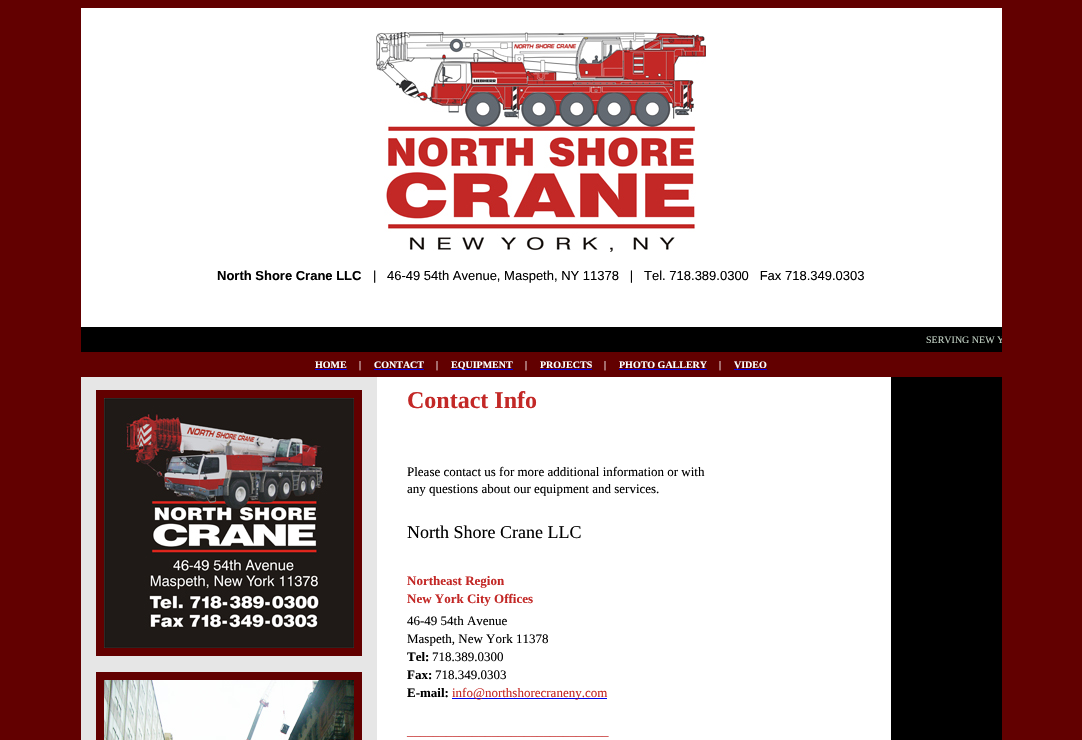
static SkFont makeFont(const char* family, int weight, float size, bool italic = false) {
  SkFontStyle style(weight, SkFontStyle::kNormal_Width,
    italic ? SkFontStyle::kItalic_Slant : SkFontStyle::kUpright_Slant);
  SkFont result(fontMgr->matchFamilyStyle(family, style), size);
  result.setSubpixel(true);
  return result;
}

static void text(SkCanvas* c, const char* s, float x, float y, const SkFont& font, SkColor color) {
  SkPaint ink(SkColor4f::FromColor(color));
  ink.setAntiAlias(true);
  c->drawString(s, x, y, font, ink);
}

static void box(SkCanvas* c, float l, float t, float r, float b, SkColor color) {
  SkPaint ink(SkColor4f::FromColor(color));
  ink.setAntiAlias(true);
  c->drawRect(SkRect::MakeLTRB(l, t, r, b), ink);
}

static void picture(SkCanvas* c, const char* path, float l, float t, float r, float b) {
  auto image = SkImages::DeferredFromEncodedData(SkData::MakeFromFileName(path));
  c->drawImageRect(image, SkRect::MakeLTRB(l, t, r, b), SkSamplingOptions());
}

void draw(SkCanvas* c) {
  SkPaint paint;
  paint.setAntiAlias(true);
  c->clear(0xff620000);
  box(c, 81, 8, 1002, 740, 0xffffffff);
  picture(c, "img_01.png", 376, 32, 706, 252);
  SkFont face1 = makeFont("Liberation Sans", 700, 13);
  text(c, "North Shore Crane LLC", 217, 280, face1, 0xff000000);
  SkFont face2 = makeFont("Liberation Sans", 400, 13);
  text(c, "|", 373, 280, face2, 0xff000000);
  text(c, "46-49 54th Avenue, Maspeth, NY 11378   |   Tel. 718.389.0300   Fax 718.349.0303", 387, 280, face2, 0xff000000);
  box(c, 81, 327, 1002, 352, 0xff000000);
  c->save();
  c->clipRect(SkRect::MakeLTRB(81, 334, 1002, 345));
  SkFont face3 = makeFont("Liberation Serif", 400, 10);
  text(c, "SERVING NEW Y", 926, 343, face3, 0xffbecdc0);
  c->restore();
  box(c, 81, 352, 1002, 377, 0xff620000);
  SkFont face4 = makeFont("Liberation Serif", 700, 10);
  text(c, "HOME", 315, 368, face4, 0xffffffff);
  box(c, 315, 369, 347, 370, 0xff0000ee);
  text(c, "|", 359, 368, face3, 0xffffffff);
  text(c, "CONTACT", 374, 368, face4, 0xffffffff);
  box(c, 374, 369, 424, 370, 0xff0000ee);
  text(c, "|", 436, 368, face3, 0xffffffff);
  box(c, 451, 369, 513, 370, 0xff0000ee);
  text(c, "EQUIPMENT", 451, 368, face4, 0xffffffff);
  text(c, "|", 525, 368, face3, 0xffffffff);
  text(c, "PROJECTS", 540, 368, face4, 0xffffffff);
  box(c, 540, 369, 592, 370, 0xff0000ee);
  text(c, "|", 604, 368, face3, 0xffffffff);
  text(c, "PHOTO GALLERY", 619, 368, face4, 0xffffffff);
  box(c, 619, 369, 707, 370, 0xff0000ee);
  text(c, "|", 719, 368, face3, 0xffffffff);
  text(c, "VIDEO", 734, 368, face4, 0xffffffff);
  box(c, 734, 369, 767, 370, 0xff0000ee);
  box(c, 81, 377, 377, 740, 0xffe6e6e6);
  paint.setStyle(SkPaint::kStroke_Style);
  paint.setStrokeWidth(8);
  paint.setColor(0xff620000);
  c->drawRect(SkRect::MakeLTRB(100, 394, 358, 652), paint);
  picture(c, "img_02.png", 104, 398, 354, 648);
  c->drawRect(SkRect::MakeLTRB(100, 676, 358, 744), paint);
  picture(c, "img_03.png", 104, 680, 354, 740);
  SkFont face5 = makeFont("Liberation Serif", 700, 24);
  text(c, "Contact Info", 407, 408, face5, 0xffc32826);
  SkFont face6 = makeFont("Liberation Serif", 400, 13);
  text(c, "Please contact us for more additional information or with", 407, 476, face6, 0xff000000);
  text(c, "any questions about our equipment and services.", 407, 493, face6, 0xff000000);
  SkFont face7 = makeFont("Liberation Serif", 400, 18);
  text(c, "North Shore Crane LLC", 407, 538, face7, 0xff000000);
  SkFont face8 = makeFont("Liberation Serif", 700, 13);
  text(c, "Northeast Region", 407, 585, face8, 0xffc32826);
  text(c, "New York City Offices", 407, 603, face8, 0xffc32826);
  text(c, "46-49 54th Avenue", 407, 625, face6, 0xff000000);
  text(c, "Maspeth, New York 11378", 407, 643, face6, 0xff000000);
  text(c, "Tel:", 407, 661, face8, 0xff000000);
  text(c, "718.389.0300", 432, 661, face6, 0xff000000);
  text(c, "Fax:", 407, 679, face8, 0xff000000);
  text(c, "718.349.0303", 435, 679, face6, 0xff000000);
  text(c, "E-mail:", 407, 697, face8, 0xff000000);
  box(c, 452, 698, 607, 699, 0xff0000ee);
  text(c, "info@northshorecraneny.com", 452, 697, face6, 0xffc32826);
  text(c, "_______________________________", 407, 735, face6, 0xffc32826);
  box(c, 891, 377, 1002, 740, 0xff000000);
}
